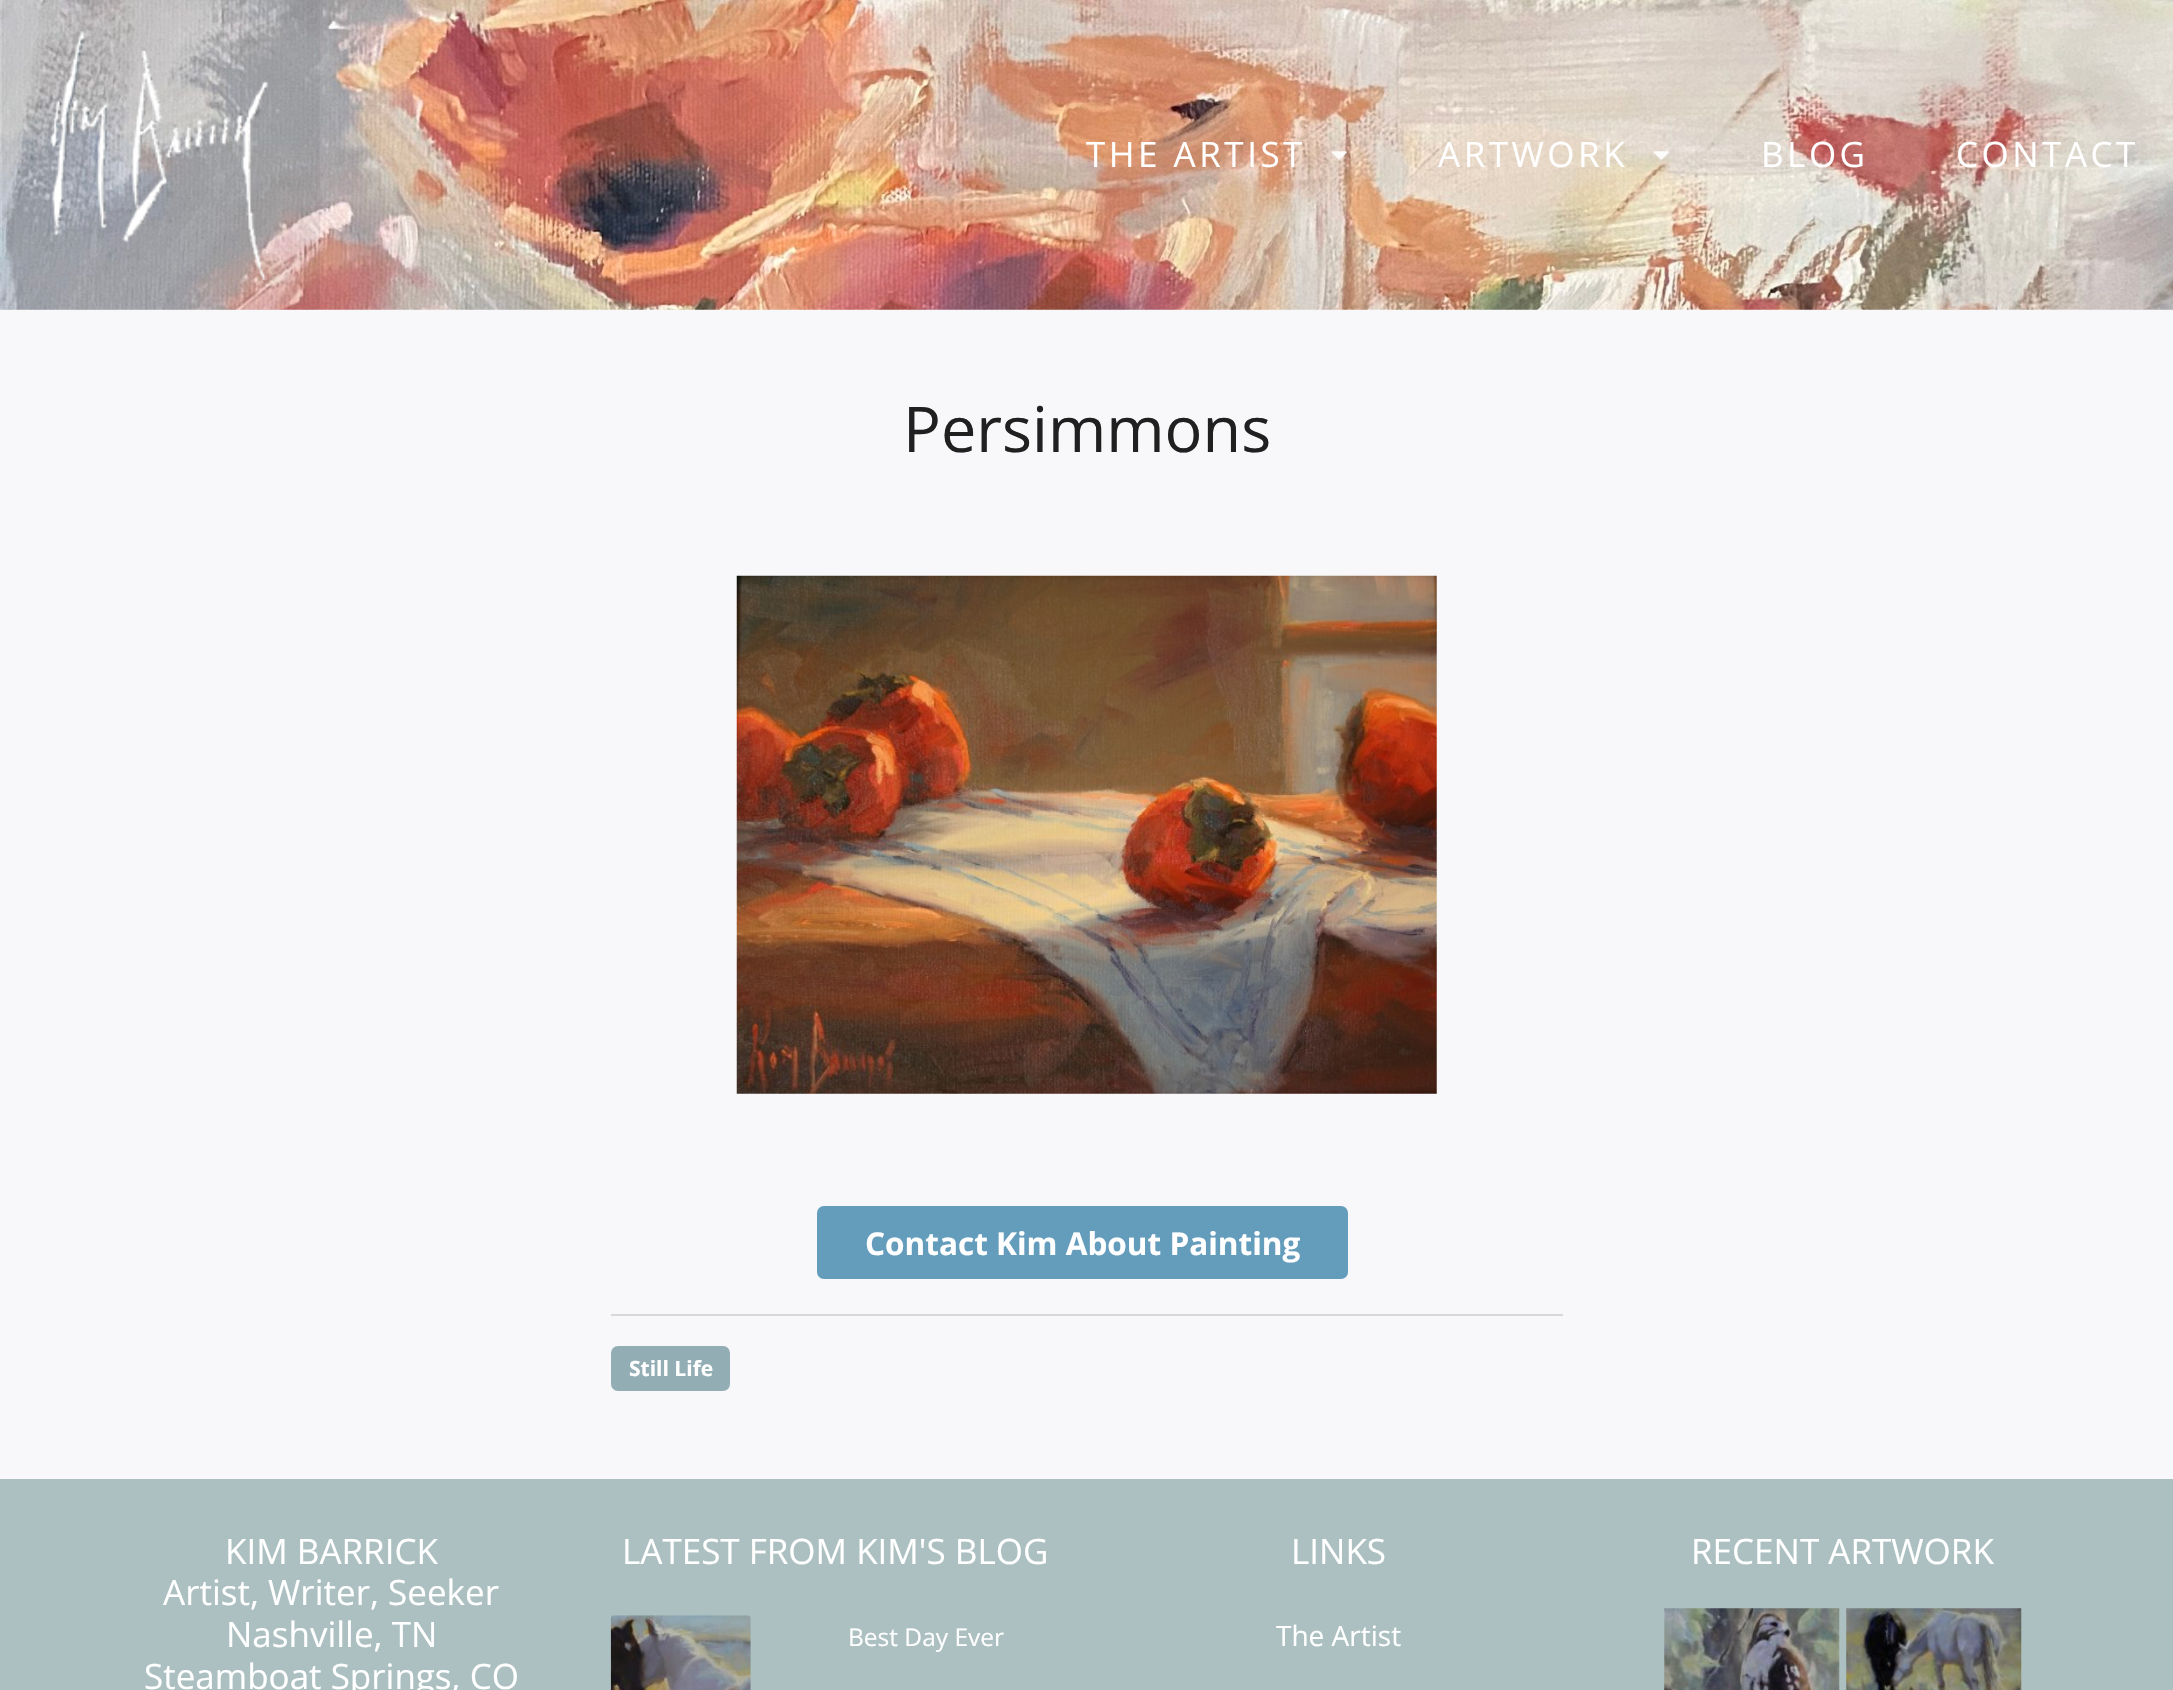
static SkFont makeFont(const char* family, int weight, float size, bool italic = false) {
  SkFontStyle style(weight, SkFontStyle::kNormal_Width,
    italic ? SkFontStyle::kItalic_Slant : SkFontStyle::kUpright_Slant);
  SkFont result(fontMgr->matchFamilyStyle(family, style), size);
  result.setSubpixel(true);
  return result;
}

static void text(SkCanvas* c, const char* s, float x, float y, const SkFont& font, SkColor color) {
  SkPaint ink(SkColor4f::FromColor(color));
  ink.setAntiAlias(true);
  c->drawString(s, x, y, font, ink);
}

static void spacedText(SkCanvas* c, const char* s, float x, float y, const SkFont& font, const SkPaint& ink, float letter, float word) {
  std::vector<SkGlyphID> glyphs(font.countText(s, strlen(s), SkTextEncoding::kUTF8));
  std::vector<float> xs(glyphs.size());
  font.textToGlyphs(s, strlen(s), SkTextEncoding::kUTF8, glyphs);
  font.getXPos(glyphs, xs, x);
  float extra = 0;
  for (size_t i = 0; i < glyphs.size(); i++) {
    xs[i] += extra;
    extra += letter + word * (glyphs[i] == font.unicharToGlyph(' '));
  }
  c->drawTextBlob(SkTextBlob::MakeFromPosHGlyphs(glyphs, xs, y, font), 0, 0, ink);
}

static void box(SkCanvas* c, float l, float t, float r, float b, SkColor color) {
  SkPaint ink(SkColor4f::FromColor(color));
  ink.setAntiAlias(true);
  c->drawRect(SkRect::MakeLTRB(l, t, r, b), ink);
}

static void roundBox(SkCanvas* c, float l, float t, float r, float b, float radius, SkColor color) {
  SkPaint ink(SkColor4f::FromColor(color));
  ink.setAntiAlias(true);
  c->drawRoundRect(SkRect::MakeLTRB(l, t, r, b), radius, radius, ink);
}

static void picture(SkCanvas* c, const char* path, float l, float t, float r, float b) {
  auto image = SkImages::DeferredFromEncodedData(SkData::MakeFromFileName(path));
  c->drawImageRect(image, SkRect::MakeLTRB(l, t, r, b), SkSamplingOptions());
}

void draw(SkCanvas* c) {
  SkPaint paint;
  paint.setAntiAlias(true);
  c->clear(0xfff8f8fa);
  picture(c, "img_01.png", 0, 0, 2173, 310);
  box(c, 2, 0, 320, 310, 0x0d000000);
  picture(c, "img_02.png", 50, 31, 269, 280);
  SkFont face1 = makeFont("Open Sans", 400, 35);
  paint.setColor(0xffffffff);
  spacedText(c, "THE ARTIST", 1086, 167, face1, paint, 3.5f, 0);
  picture(c, "img_03.png", 1331, 151, 1347, 160);
  spacedText(c, "ARTWORK", 1438, 167, face1, paint, 3.5f, 0);
  picture(c, "img_04.png", 1653, 151, 1669, 160);
  spacedText(c, "BLOG", 1761, 167, face1, paint, 3.5f, 0);
  spacedText(c, "CONTACT", 1956, 167, face1, paint, 3.5f, 0);
  SkFont face2 = makeFont("Open Sans", 400, 63);
  text(c, "Persimmons", 903, 452, face2, 0xff202021);
  picture(c, "img_05.png", 736, 575, 1437, 1094);
  roundBox(c, 817, 1206, 1348, 1279, 7, 0xff649cbc);
  SkFont face3 = makeFont("Open Sans", 700, 31.5f);
  text(c, "Contact Kim About Painting", 865, 1255, face3, 0xffffffff);
  box(c, 611, 1314, 1563, 1316, 0xffd8d8da);
  roundBox(c, 611, 1346, 730, 1391, 7, 0xff93adb4);
  SkFont face4 = makeFont("Open Sans", 700, 21);
  text(c, "Still Life", 629, 1376, face4, 0xffffffff);
  box(c, 0, 1479, 2173, 1690, 0xffacc0c1);
  text(c, "KIM BARRICK", 225, 1564, face1, 0xffffffff);
  text(c, "Artist, Writer, Seeker", 163, 1605, face1, 0xffffffff);
  text(c, "Nashville, TN", 226, 1647, face1, 0xffffffff);
  text(c, "Steamboat Springs, CO", 144, 1689, face1, 0xffffffff);
  text(c, "LATEST FROM KIM'S BLOG", 622, 1564, face1, 0xffffffff);
  picture(c, "img_06.png", 610, 1615, 751, 1690);
  SkFont face5 = makeFont("Open Sans", 400, 24.5f);
  text(c, "Best Day Ever", 848, 1646, face5, 0xffffffff);
  text(c, "LINKS", 1291, 1564, face1, 0xffffffff);
  SkFont face6 = makeFont("Open Sans", 400, 28);
  text(c, "The Artist", 1276, 1646, face6, 0xffffffff);
  text(c, "RECENT ARTWORK", 1691, 1564, face1, 0xffffffff);
  picture(c, "img_07.png", 1664, 1608, 1840, 1690);
  picture(c, "img_08.png", 1846, 1608, 2022, 1690);
}
